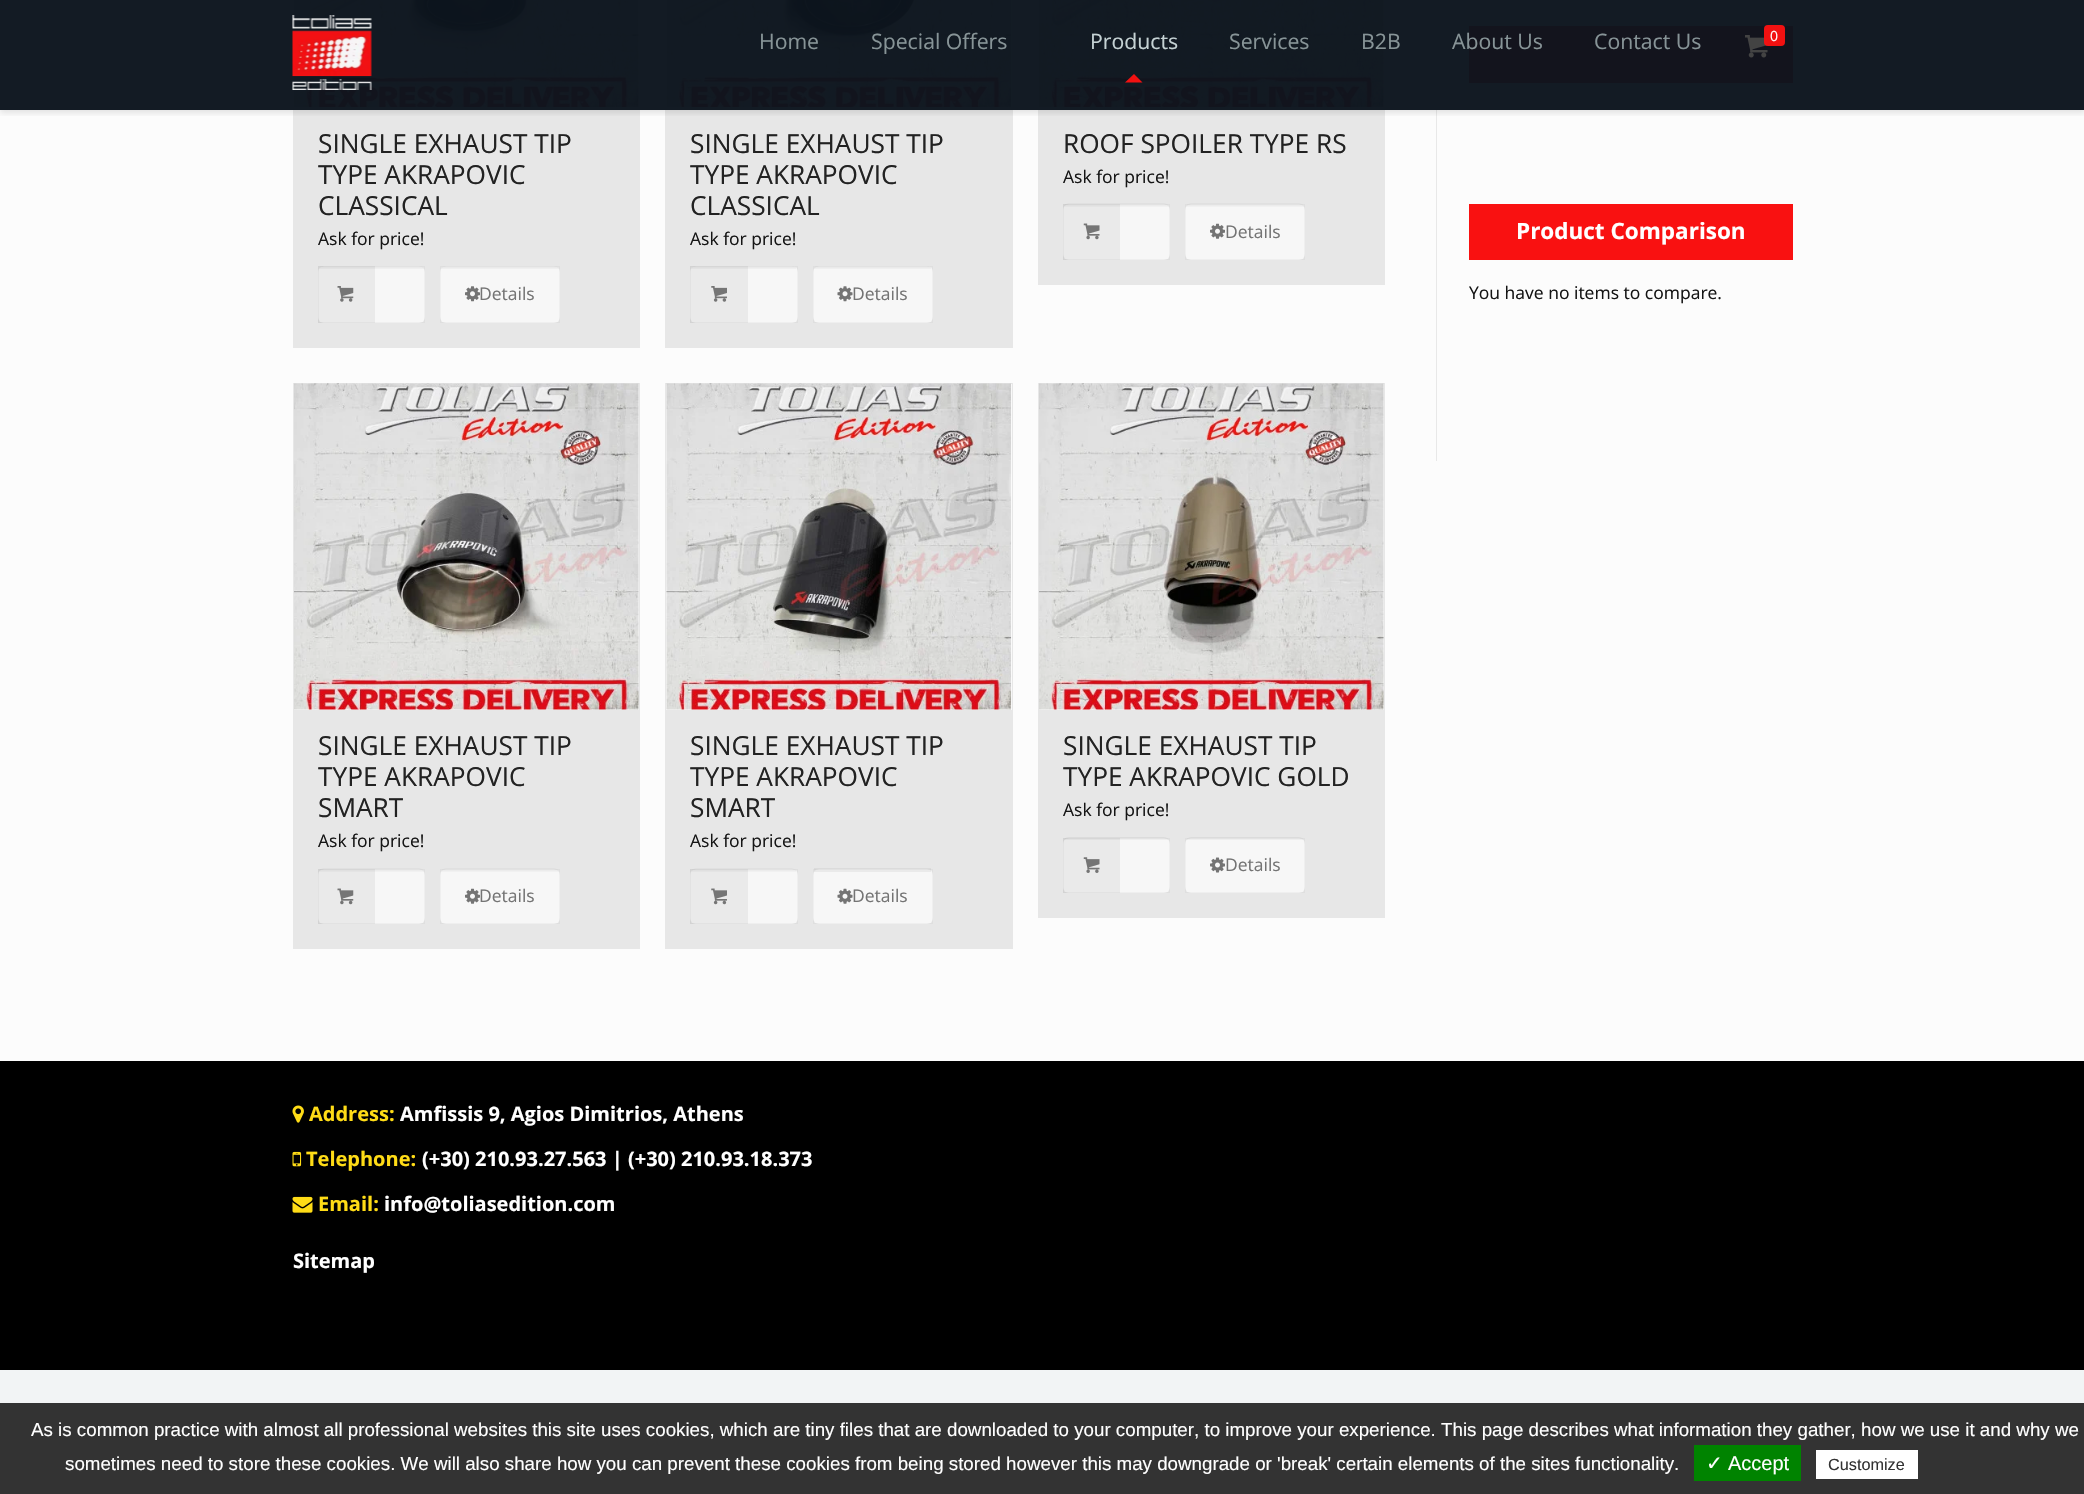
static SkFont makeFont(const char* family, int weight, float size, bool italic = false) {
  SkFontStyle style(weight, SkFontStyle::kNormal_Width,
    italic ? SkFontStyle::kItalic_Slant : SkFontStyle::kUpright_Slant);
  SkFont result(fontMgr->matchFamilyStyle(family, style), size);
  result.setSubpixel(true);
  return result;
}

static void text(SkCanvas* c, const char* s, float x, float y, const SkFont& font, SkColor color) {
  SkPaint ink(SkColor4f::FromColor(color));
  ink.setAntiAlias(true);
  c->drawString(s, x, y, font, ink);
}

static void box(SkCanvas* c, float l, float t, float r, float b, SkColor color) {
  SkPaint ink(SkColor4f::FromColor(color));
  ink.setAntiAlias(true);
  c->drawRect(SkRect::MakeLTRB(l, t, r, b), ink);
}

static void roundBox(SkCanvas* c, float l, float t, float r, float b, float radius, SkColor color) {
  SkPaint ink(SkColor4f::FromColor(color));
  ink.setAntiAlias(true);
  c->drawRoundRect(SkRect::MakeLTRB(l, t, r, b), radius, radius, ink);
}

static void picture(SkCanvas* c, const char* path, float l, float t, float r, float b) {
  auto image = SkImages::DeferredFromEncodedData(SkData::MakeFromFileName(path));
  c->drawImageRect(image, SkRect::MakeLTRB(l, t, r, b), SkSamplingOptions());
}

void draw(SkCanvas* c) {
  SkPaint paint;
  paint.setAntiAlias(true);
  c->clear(0xfffcfcfc);
  box(c, 0, 0, 2084, 110, 0xff131b24);
  picture(c, "img_03.png", 294, 0, 639, 107);
  box(c, 293, 110, 640, 348, 0xffe7e7e7);
  picture(c, "img_08.png", 666, 0, 1012, 107);
  box(c, 665, 110, 1013, 348, 0xffe7e7e7);
  picture(c, "img_13.png", 1039, 0, 1384, 107);
  box(c, 1038, 110, 1385, 285, 0xffe7e7e7);
  box(c, 1436, 110, 1437, 461, 0xffe8e8e8);
  box(c, 1469, 26, 1793, 83, 0xff13141d);
  c->save();
  c->clipRect(SkRect::MakeLTRB(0, 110, 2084, 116));
  paint.setColor(0x1a000000);
  paint.setMaskFilter(SkMaskFilter::MakeBlur(kNormal_SkBlurStyle, 3));
  c->drawRect(SkRect::MakeLTRB(0, 3, 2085, 113), paint);
  paint.setMaskFilter(nullptr);
  c->restore();
  picture(c, "img_01.png", 292, 15, 372, 90);
  SkFont face1 = makeFont("Open Sans", 400, 21.25f);
  text(c, "Home", 759, 49, face1, 0xff879497);
  text(c, "Special Offers", 871, 49, face1, 0xff879497);
  text(c, "Products", 1090, 49, face1, 0xffc5d2d4);
  paint.setColor(0xf7f91111);
  c->drawPath(SkPathBuilder().moveTo(1142.5f, 82.5f).lineTo(1125, 82.5f).lineTo(1134, 74).close().detach(), paint);
  text(c, "Services", 1229, 49, face1, 0xff879497);
  text(c, "B2B", 1361, 49, face1, 0xff879497);
  text(c, "About Us", 1452, 49, face1, 0xff879497);
  text(c, "Contact Us", 1594, 49, face1, 0xff879497);
  picture(c, "img_02.png", 1745, 35, 1768, 58);
  roundBox(c, 1764, 25, 1785, 46, 4, 0xf7f91111);
  SkFont face2 = makeFont("Open Sans", 400, 14);
  text(c, "0", 1770, 41, face2, 0xfffff8f8);
  SkFont face3 = makeFont("Open Sans", 400, 26.25f);
  text(c, "SINGLE EXHAUST TIP", 318, 153, face3, 0xff222222);
  text(c, "TYPE AKRAPOVIC", 318, 184, face3, 0xff222222);
  text(c, "CLASSICAL", 318, 215, face3, 0xff222222);
  SkFont face4 = makeFont("Open Sans", 400, 17.5f);
  text(c, "Ask for price!", 318, 245, face4, 0xff151515);
  roundBox(c, 318, 266, 425, 323, 6, 0xfff7f7f7);
  picture(c, "img_04.png", 319, 266, 424, 269);
  paint.setStyle(SkPaint::kStroke_Style);
  paint.setStrokeWidth(1);
  paint.setColor(0x08000000);
  c->drawRect(SkRect::MakeLTRB(318.5f, 266.5f, 424.5f, 322.5f), paint);
  box(c, 318, 266, 375, 323, 0x0d000000);
  picture(c, "img_05.png", 337, 286, 354, 302);
  roundBox(c, 440, 266, 560, 323, 6, 0xfff7f7f7);
  picture(c, "img_06.png", 441, 266, 559, 269);
  c->drawRect(SkRect::MakeLTRB(440.5f, 266.5f, 559.5f, 322.5f), paint);
  picture(c, "img_07.png", 465, 286, 480, 302);
  text(c, "Details", 479, 300, face4, 0xff747474);
  text(c, "SINGLE EXHAUST TIP", 690, 153, face3, 0xff222222);
  text(c, "TYPE AKRAPOVIC", 690, 184, face3, 0xff222222);
  text(c, "CLASSICAL", 690, 215, face3, 0xff222222);
  text(c, "Ask for price!", 690, 245, face4, 0xff151515);
  roundBox(c, 690, 266, 798, 323, 6, 0xfff7f7f7);
  picture(c, "img_09.png", 691, 266, 796, 269);
  c->drawRect(SkRect::MakeLTRB(690.5f, 266.5f, 797.5f, 322.5f), paint);
  box(c, 690, 266, 748, 323, 0x0d000000);
  picture(c, "img_10.png", 711, 286, 727, 302);
  roundBox(c, 813, 266, 933, 323, 6, 0xfff7f7f7);
  picture(c, "img_11.png", 814, 266, 931, 269);
  c->drawRect(SkRect::MakeLTRB(813.5f, 266.5f, 932.5f, 322.5f), paint);
  picture(c, "img_12.png", 837, 286, 853, 302);
  text(c, "Details", 852, 300, face4, 0xff747474);
  text(c, "ROOF SPOILER TYPE RS", 1063, 153, face3, 0xff222222);
  text(c, "Ask for price!", 1063, 183, face4, 0xff151515);
  roundBox(c, 1063, 204, 1170, 260, 6, 0xfff7f7f7);
  picture(c, "img_14.png", 1064, 203, 1169, 207);
  c->drawRect(SkRect::MakeLTRB(1063.5f, 204.5f, 1169.5f, 259.5f), paint);
  box(c, 1063, 204, 1120, 260, 0x0d000000);
  picture(c, "img_15.png", 1083, 223, 1100, 240);
  roundBox(c, 1185, 204, 1305, 260, 6, 0xfff7f7f7);
  picture(c, "img_16.png", 1186, 203, 1304, 207);
  c->drawRect(SkRect::MakeLTRB(1185.5f, 204.5f, 1304.5f, 259.5f), paint);
  picture(c, "img_17.png", 1210, 223, 1225, 239);
  text(c, "Details", 1225, 238, face4, 0xff747474);
  paint.setColor(0xffe7e7e7);
  c->drawRect(SkRect::MakeLTRB(293.5f, 383.5f, 639.5f, 710.5f), paint);
  picture(c, "img_18.png", 294, 383, 639, 710);
  box(c, 293, 711, 640, 949, 0xffe7e7e7);
  text(c, "SINGLE EXHAUST TIP", 318, 755, face3, 0xff222222);
  text(c, "TYPE AKRAPOVIC", 318, 786, face3, 0xff222222);
  text(c, "SMART", 318, 817, face3, 0xff222222);
  text(c, "Ask for price!", 318, 847, face4, 0xff151515);
  roundBox(c, 318, 869, 425, 924, 6, 0xfff7f7f7);
  picture(c, "img_14.png", 319, 868, 424, 872);
  paint.setColor(0x08000000);
  c->drawRect(SkRect::MakeLTRB(318.5f, 869.5f, 424.5f, 923.5f), paint);
  box(c, 318, 869, 375, 924, 0x0d000000);
  picture(c, "img_19.png", 337, 888, 354, 905);
  roundBox(c, 440, 869, 560, 924, 6, 0xfff7f7f7);
  picture(c, "img_16.png", 441, 868, 559, 872);
  c->drawRect(SkRect::MakeLTRB(440.5f, 869.5f, 559.5f, 923.5f), paint);
  picture(c, "img_17.png", 465, 888, 480, 904);
  text(c, "Details", 479, 902, face4, 0xff747474);
  paint.setColor(0xffe7e7e7);
  c->drawRect(SkRect::MakeLTRB(665.5f, 383.5f, 1012.5f, 710.5f), paint);
  picture(c, "img_20.png", 666, 383, 1012, 710);
  box(c, 665, 711, 1013, 949, 0xffe7e7e7);
  text(c, "SINGLE EXHAUST TIP", 690, 755, face3, 0xff222222);
  text(c, "TYPE AKRAPOVIC", 690, 786, face3, 0xff222222);
  text(c, "SMART", 690, 817, face3, 0xff222222);
  text(c, "Ask for price!", 690, 847, face4, 0xff151515);
  roundBox(c, 690, 869, 798, 924, 6, 0xfff7f7f7);
  picture(c, "img_21.png", 691, 868, 796, 872);
  paint.setColor(0x08000000);
  c->drawRect(SkRect::MakeLTRB(690.5f, 869.5f, 797.5f, 923.5f), paint);
  box(c, 690, 869, 748, 924, 0x0d000000);
  picture(c, "img_22.png", 711, 888, 727, 905);
  roundBox(c, 813, 869, 933, 924, 6, 0xfff7f7f7);
  box(c, 814, 868, 931, 872, 0x0d000000);
  c->drawRect(SkRect::MakeLTRB(813.5f, 869.5f, 932.5f, 923.5f), paint);
  picture(c, "img_23.png", 837, 888, 853, 904);
  text(c, "Details", 852, 902, face4, 0xff747474);
  paint.setColor(0xffe7e7e7);
  c->drawRect(SkRect::MakeLTRB(1038.5f, 383.5f, 1384.5f, 710.5f), paint);
  picture(c, "img_24.png", 1039, 383, 1384, 710);
  box(c, 1038, 711, 1385, 918, 0xffe7e7e7);
  text(c, "SINGLE EXHAUST TIP", 1063, 755, face3, 0xff222222);
  text(c, "TYPE AKRAPOVIC GOLD", 1063, 786, face3, 0xff222222);
  text(c, "Ask for price!", 1063, 816, face4, 0xff151515);
  roundBox(c, 1063, 838, 1170, 893, 6, 0xfff7f7f7);
  picture(c, "img_25.png", 1064, 837, 1169, 840);
  paint.setColor(0x08000000);
  c->drawRect(SkRect::MakeLTRB(1063.5f, 838.5f, 1169.5f, 892.5f), paint);
  box(c, 1063, 838, 1120, 893, 0x0d000000);
  picture(c, "img_26.png", 1083, 857, 1100, 873);
  roundBox(c, 1185, 838, 1305, 893, 6, 0xfff7f7f7);
  picture(c, "img_27.png", 1186, 837, 1304, 840);
  c->drawRect(SkRect::MakeLTRB(1185.5f, 838.5f, 1304.5f, 892.5f), paint);
  picture(c, "img_28.png", 1210, 857, 1225, 873);
  text(c, "Details", 1225, 871, face4, 0xff747474);
  box(c, 1469, 204, 1793, 260, 0xfff91111);
  SkFont face5 = makeFont("Open Sans", 700, 22.5f);
  text(c, "Product Comparison", 1516, 239, face5, 0xffffffff);
  text(c, "You have no items to compare.", 1469, 299, face4, 0xff151515);
  box(c, 0, 1370, 2084, 1403, 0xfff2f4f5);
  box(c, 0, 1061, 2084, 1370, 0xff000000);
  picture(c, "img_29.png", 292, 1105, 304, 1123);
  SkFont face6 = makeFont("Open Sans", 700, 20);
  text(c, "Address:", 309, 1121, face6, 0xffffdc16);
  text(c, "Amfissis 9, Agios Dimitrios, Athens", 400, 1121, face6, 0xffffffff);
  picture(c, "img_30.png", 292, 1151, 302, 1167);
  text(c, "Telephone:", 306, 1166, face6, 0xffffdc16);
  text(c, "(+30) 210.93.27.563 | (+30) 210.93.18.373", 422, 1166, face6, 0xffffffff);
  picture(c, "img_31.png", 292, 1196, 313, 1213);
  text(c, "Email:", 318, 1211, face6, 0xffffdc16);
  text(c, "info@toliasedition.com", 384, 1211, face6, 0xffffffff);
  text(c, "Sitemap", 293, 1268, face6, 0xffffffff);
  box(c, 0, 1403, 2084, 1494, 0xff333333);
  SkFont face7 = makeFont("Liberation Sans", 400, 18.75f);
  text(c, "As is common practice with almost all professional websites this site uses cookies, which are tiny files that are downloaded to your computer, to improve your experience. This page describes what information they gather, how we use it and why we", 31, 1436, face7, 0xffffffff);
  text(c, "sometimes need to store these cookies. We will also share how you can prevent these cookies from being stored however this may downgrade or 'break' certain elements of the sites functionality.", 65, 1470, face7, 0xffffffff);
  box(c, 1694, 1445, 1801, 1481, 0xff008300);
  SkFont face8 = makeFont("DejaVu Sans", 400, 20);
  text(c, "✓", 1706, 1470, face8, 0xffffffff);
  SkFont face9 = makeFont("Liberation Sans", 400, 20);
  text(c, "Accept", 1728, 1470, face9, 0xffffffff);
  box(c, 1816, 1450, 1918, 1479, 0xffffffff);
  SkFont face10 = makeFont("Liberation Sans", 400, 16.25f);
  text(c, "Customize", 1828, 1470, face10, 0xff333333);
}
